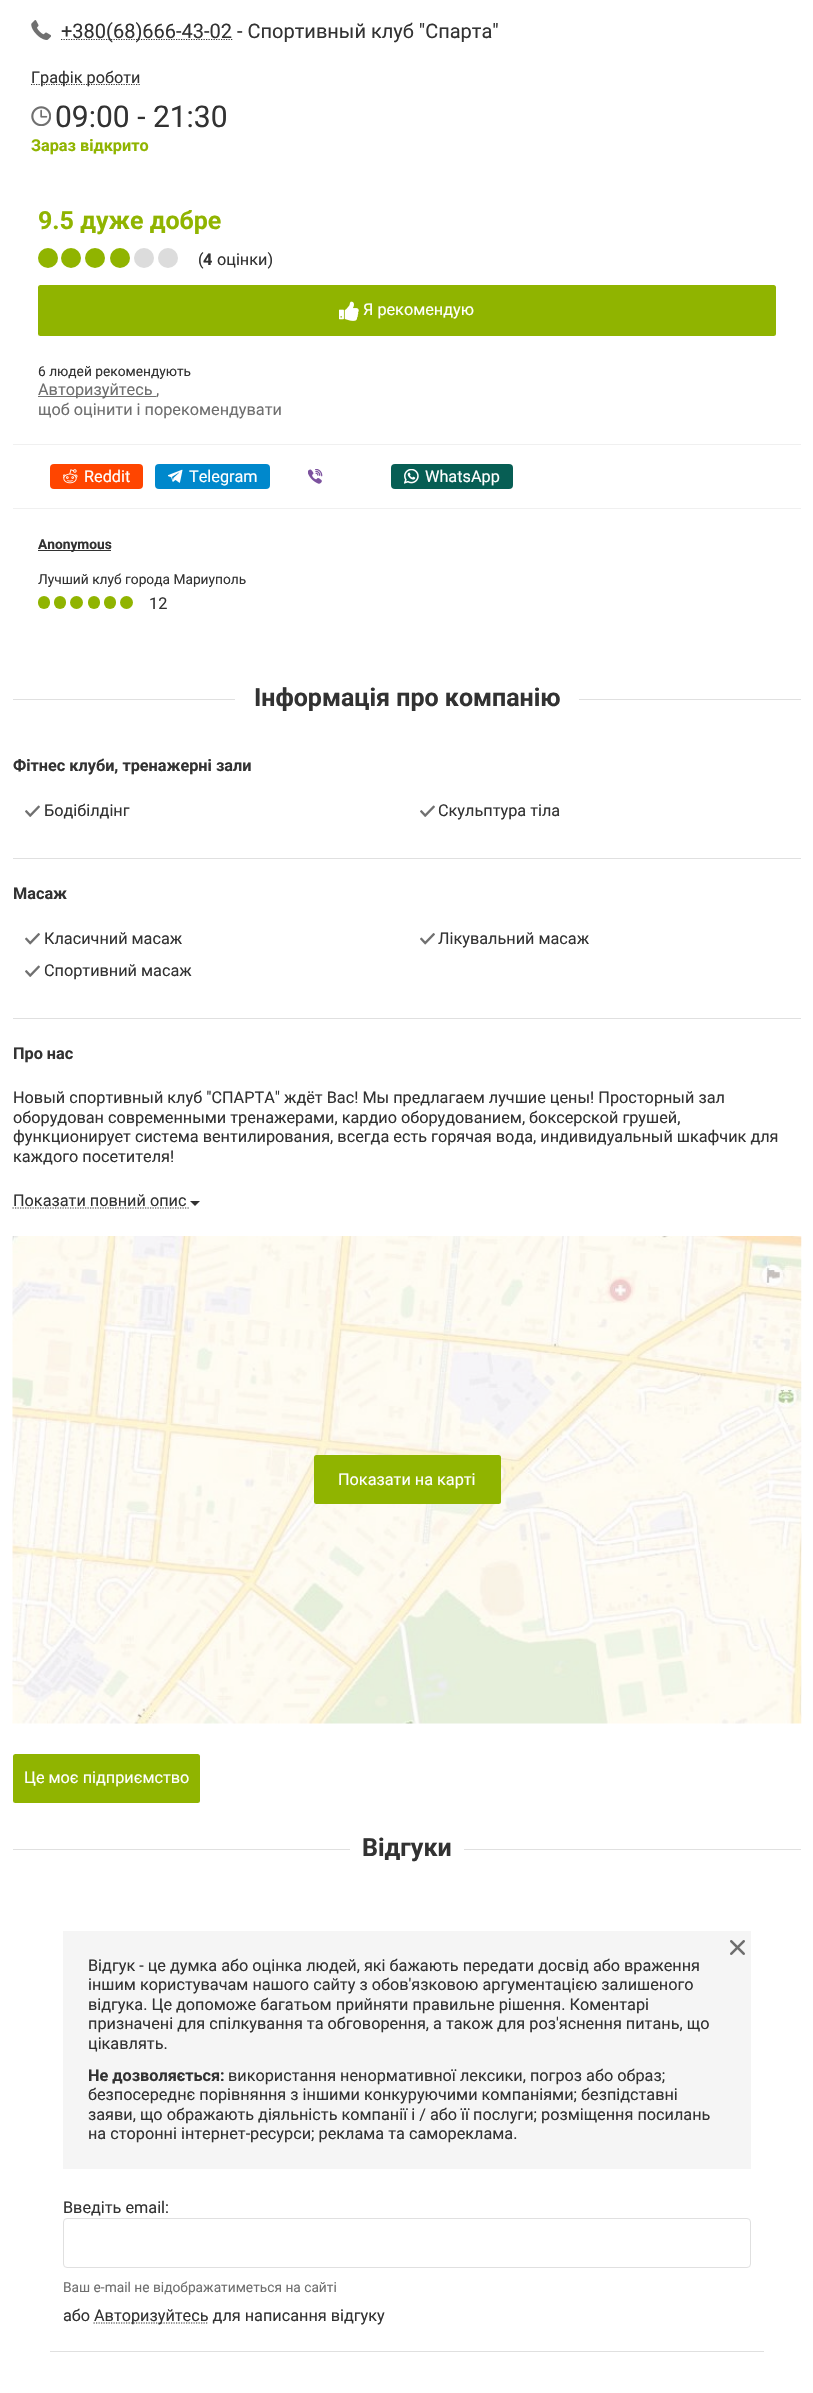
static SkFont makeFont(const char* family, int weight, float size, bool italic = false) {
  SkFontStyle style(weight, SkFontStyle::kNormal_Width,
    italic ? SkFontStyle::kItalic_Slant : SkFontStyle::kUpright_Slant);
  SkFont result(fontMgr->matchFamilyStyle(family, style), size);
  result.setSubpixel(true);
  return result;
}

static void text(SkCanvas* c, const char* s, float x, float y, const SkFont& font, SkColor color) {
  SkPaint ink(SkColor4f::FromColor(color));
  ink.setAntiAlias(true);
  c->drawString(s, x, y, font, ink);
}

static void box(SkCanvas* c, float l, float t, float r, float b, SkColor color) {
  SkPaint ink(SkColor4f::FromColor(color));
  ink.setAntiAlias(true);
  c->drawRect(SkRect::MakeLTRB(l, t, r, b), ink);
}

static void roundBox(SkCanvas* c, float l, float t, float r, float b, float radius, SkColor color) {
  SkPaint ink(SkColor4f::FromColor(color));
  ink.setAntiAlias(true);
  c->drawRoundRect(SkRect::MakeLTRB(l, t, r, b), radius, radius, ink);
}

static void picture(SkCanvas* c, const char* path, float l, float t, float r, float b) {
  auto image = SkImages::DeferredFromEncodedData(SkData::MakeFromFileName(path));
  c->drawImageRect(image, SkRect::MakeLTRB(l, t, r, b), SkSamplingOptions());
}

void draw(SkCanvas* c) {
  SkPaint paint;
  paint.setAntiAlias(true);
  c->clear(0xffffffff);
  picture(c, "img_01.png", 31, 20, 51, 40);
  paint.setStyle(SkPaint::kStroke_Style);
  paint.setStrokeWidth(1.2f);
  paint.setColor(0xff323232);
  paint.setPathEffect(SkDashPathEffect::Make({{1.25f, 1.25f}}, 0));
  c->drawPath(SkPathBuilder().moveTo(61, 39.5f).lineTo(232.5f, 39.5f).detach(), paint);
  paint.setPathEffect(nullptr);
  SkFont face1 = makeFont("Roboto", 400, 20);
  text(c, "+380(68)666-43-02 - Спортивный клуб \"Спарта\"", 61, 38, face1, 0xff323232);
  paint.setPathEffect(SkDashPathEffect::Make({{1.25f, 1.25f}}, 0));
  c->drawPath(SkPathBuilder().moveTo(31, 84.5f).lineTo(140.5f, 84.5f).detach(), paint);
  paint.setPathEffect(nullptr);
  SkFont face2 = makeFont("Roboto", 400, 16.25f);
  text(c, "Графік роботи", 31, 83, face2, 0xff323232);
  picture(c, "img_02.png", 31, 106, 51, 126);
  SkFont face3 = makeFont("Roboto", 400, 30);
  text(c, "09:00 - 21:30", 55, 127, face3, 0xff323232);
  SkFont face4 = makeFont("Roboto", 700, 16.25f);
  text(c, "Зараз відкрито", 31, 151, face4, 0xff90b400);
  SkFont face5 = makeFont("Roboto", 700, 25);
  text(c, "9.5 дуже добре", 38, 229, face5, 0xff90b400);
  paint.setStyle(SkPaint::kFill_Style);
  paint.setColor(0xff90b400);
  c->drawCircle(48, 258, 10, paint);
  c->drawCircle(71, 258, 10, paint);
  c->drawCircle(95, 258, 10, paint);
  c->drawCircle(120, 258, 10, paint);
  paint.setColor(0xffdcdcdc);
  c->drawCircle(144, 258, 10, paint);
  c->drawCircle(168, 258, 10, paint);
  text(c, "(", 198, 265, face2, 0xff323232);
  text(c, "4", 203, 265, face4, 0xff323232);
  text(c, "оцінки)", 217, 265, face2, 0xff323232);
  roundBox(c, 38, 285, 776, 336, 2.5f, 0xff90b400);
  picture(c, "img_03.png", 339, 301, 359, 321);
  text(c, "Я рекомендую", 363, 315, face2, 0xffffffff);
  SkFont face6 = makeFont("Roboto", 400, 13.75f);
  text(c, "6 людей рекомендують", 38, 376, face6, 0xff323232);
  box(c, 38, 396, 156, 397, 0xff707070);
  text(c, "Авторизуйтесь", 38, 395, face2, 0xff6f6f6f);
  text(c, ",", 156, 395, face2, 0xff6f6f6f);
  text(c, "щоб оцінити і порекомендувати", 38, 415, face2, 0xff6f6f6f);
  box(c, 13, 444, 801, 445, 0xfff0f0f0);
  roundBox(c, 50, 464, 143, 489, 4, 0xffff4500);
  picture(c, "img_04.png", 63, 469, 78, 484);
  text(c, "Reddit", 84, 482, face2, 0xffffffff);
  roundBox(c, 155, 464, 270, 489, 4, 0xff0088cc);
  picture(c, "img_05.png", 168, 469, 183, 483);
  text(c, "Telegram", 189, 482, face2, 0xffffffff);
  picture(c, "img_06.png", 308, 469, 323, 484);
  roundBox(c, 391, 464, 513, 489, 4, 0xff075e54);
  picture(c, "img_07.png", 404, 469, 419, 484);
  text(c, "WhatsApp", 425, 482, face2, 0xffffffff);
  box(c, 13, 508, 801, 509, 0xfff0f0f0);
  box(c, 38, 550, 111, 551, 0xff323232);
  SkFont face7 = makeFont("Roboto", 700, 13.75f);
  text(c, "Anonymous", 38, 549, face7, 0xff323232);
  text(c, "Лучший клуб города Мариуполь", 38, 584, face6, 0xff323232);
  roundBox(c, 38, 596, 50, 609, 6, 0xff90b400);
  roundBox(c, 54, 596, 66, 609, 6, 0xff90b400);
  paint.setColor(0xff90b400);
  c->drawCircle(76.5f, 602.5f, 6.5f, paint);
  roundBox(c, 88, 596, 100, 609, 6, 0xff90b400);
  roundBox(c, 104, 596, 116, 609, 6, 0xff90b400);
  c->drawCircle(126.5f, 602.5f, 6.5f, paint);
  text(c, "12", 149, 609, face2, 0xff323232);
  box(c, 13, 699, 235, 700, 0xffe0e0e0);
  text(c, "Інформація про компанію", 254, 706, face5, 0xff323232);
  box(c, 579, 699, 801, 700, 0xffe0e0e0);
  box(c, 13, 858, 801, 859, 0xffe0e0e0);
  text(c, "Фітнес клуби, тренажерні зали", 13, 771, face4, 0xff323232);
  picture(c, "img_08.png", 25, 805, 40, 817);
  text(c, "Бодібілдінг", 44, 816, face2, 0xff323232);
  picture(c, "img_08.png", 420, 805, 435, 817);
  text(c, "Скульптура тіла", 438, 816, face2, 0xff323232);
  box(c, 13, 1018, 801, 1019, 0xffe0e0e0);
  text(c, "Масаж", 13, 899, face4, 0xff323232);
  picture(c, "img_09.png", 25, 933, 40, 945);
  text(c, "Класичний масаж", 44, 944, face2, 0xff323232);
  picture(c, "img_09.png", 420, 933, 435, 945);
  text(c, "Лікувальний масаж", 438, 944, face2, 0xff323232);
  picture(c, "img_08.png", 25, 965, 40, 977);
  text(c, "Спортивний масаж", 44, 976, face2, 0xff323232);
  text(c, "Про нас", 13, 1059, face4, 0xff323232);
  text(c, "Новый спортивный клуб \"СПАРТА\" ждёт Вас! Мы предлагаем лучшие цены! Просторный зал", 13, 1103, face2, 0xff323232);
  text(c, "оборудован современными тренажерами, кардио оборудованием, боксерской грушей,", 13, 1123, face2, 0xff323232);
  text(c, "функционирует система вентилирования, всегда есть горячая вода, индивидуальный шкафчик для", 13, 1142, face2, 0xff323232);
  text(c, "каждого посетителя!", 13, 1162, face2, 0xff323232);
  text(c, "Показати повний опис", 13, 1206, face2, 0xff323232);
  paint.setStyle(SkPaint::kStroke_Style);
  paint.setColor(0xff323232);
  paint.setPathEffect(SkDashPathEffect::Make({{1.25f, 1.25f}}, 0));
  c->drawPath(SkPathBuilder().moveTo(12.5f, 1208).lineTo(190, 1208).detach(), paint);
  paint.setPathEffect(nullptr);
  paint.setStyle(SkPaint::kFill_Style);
  c->drawPath(SkPathBuilder().moveTo(190, 1201).lineTo(200, 1201).lineTo(195, 1206).close().detach(), paint);
  picture(c, "img_10.png", 12, 1236, 802, 1724);
  roundBox(c, 314, 1455, 501, 1504, 2.5f, 0xff90b400);
  text(c, "Показати на карті", 338, 1485, face2, 0xffffffff);
  roundBox(c, 13, 1754, 200, 1803, 2.5f, 0xff90b400);
  text(c, "Це моє підприємство", 24, 1783, face2, 0xffffffff);
  box(c, 13, 1849, 350, 1850, 0xffe0e0e0);
  text(c, "Відгуки", 362, 1856, face5, 0xff323232);
  box(c, 464, 1849, 801, 1850, 0xffe0e0e0);
  box(c, 63, 1931, 751, 2169, 0xfff5f5f5);
  picture(c, "img_11.png", 730, 1940, 745, 1955);
  text(c, "Відгук - це думка або оцінка людей, які бажають передати досвід або враження", 88, 1971, face2, 0xff323232);
  text(c, "іншим користувачам нашого сайту з обов'язковою аргументацією залишеного", 88, 1990, face2, 0xff323232);
  text(c, "відгука. Це допоможе багатьом прийняти правильне рішення. Коментарі", 88, 2010, face2, 0xff323232);
  text(c, "призначені для спілкування та обговорення, а також для роз'яснення питань, що", 88, 2029, face2, 0xff323232);
  text(c, "цікавлять.", 88, 2049, face2, 0xff323232);
  text(c, "Не дозволяється:", 88, 2081, face4, 0xff323232);
  text(c, "використання ненормативної лексики, погроз або образ;", 228, 2081, face2, 0xff323232);
  text(c, "безпосереднє порівняння з іншими конкуруючими компаніями; безпідставні", 88, 2100, face2, 0xff323232);
  text(c, "заяви, що ображають діяльність компанії і / або її послуги; розміщення посилань", 88, 2120, face2, 0xff323232);
  text(c, "на сторонні інтернет-ресурси; реклама та самореклама.", 88, 2139, face2, 0xff323232);
  box(c, 50, 2351, 764, 2352, 0xffe0e0e0);
  text(c, "Введіть email:", 63, 2213, face2, 0xff323232);
  paint.setStyle(SkPaint::kStroke_Style);
  paint.setStrokeWidth(1);
  paint.setColor(0xffe0e0e0);
  c->drawRoundRect(SkRect::MakeLTRB(63.5f, 2218.5f, 750.5f, 2267.5f), 3.5f, 3.5f, paint);
  text(c, "Ваш e-mail не відображатиметься на сайті", 63, 2292, face6, 0xff6f6f6f);
  text(c, "або", 63, 2321, face2, 0xff323232);
  paint.setStrokeWidth(1.2f);
  paint.setColor(0xff323232);
  paint.setPathEffect(SkDashPathEffect::Make({{1.25f, 1.25f}}, 0));
  c->drawPath(SkPathBuilder().moveTo(93.5f, 2323).lineTo(208, 2323).detach(), paint);
  paint.setPathEffect(nullptr);
  text(c, "Авторизуйтесь для написання відгуку", 94, 2321, face2, 0xff323232);
}
